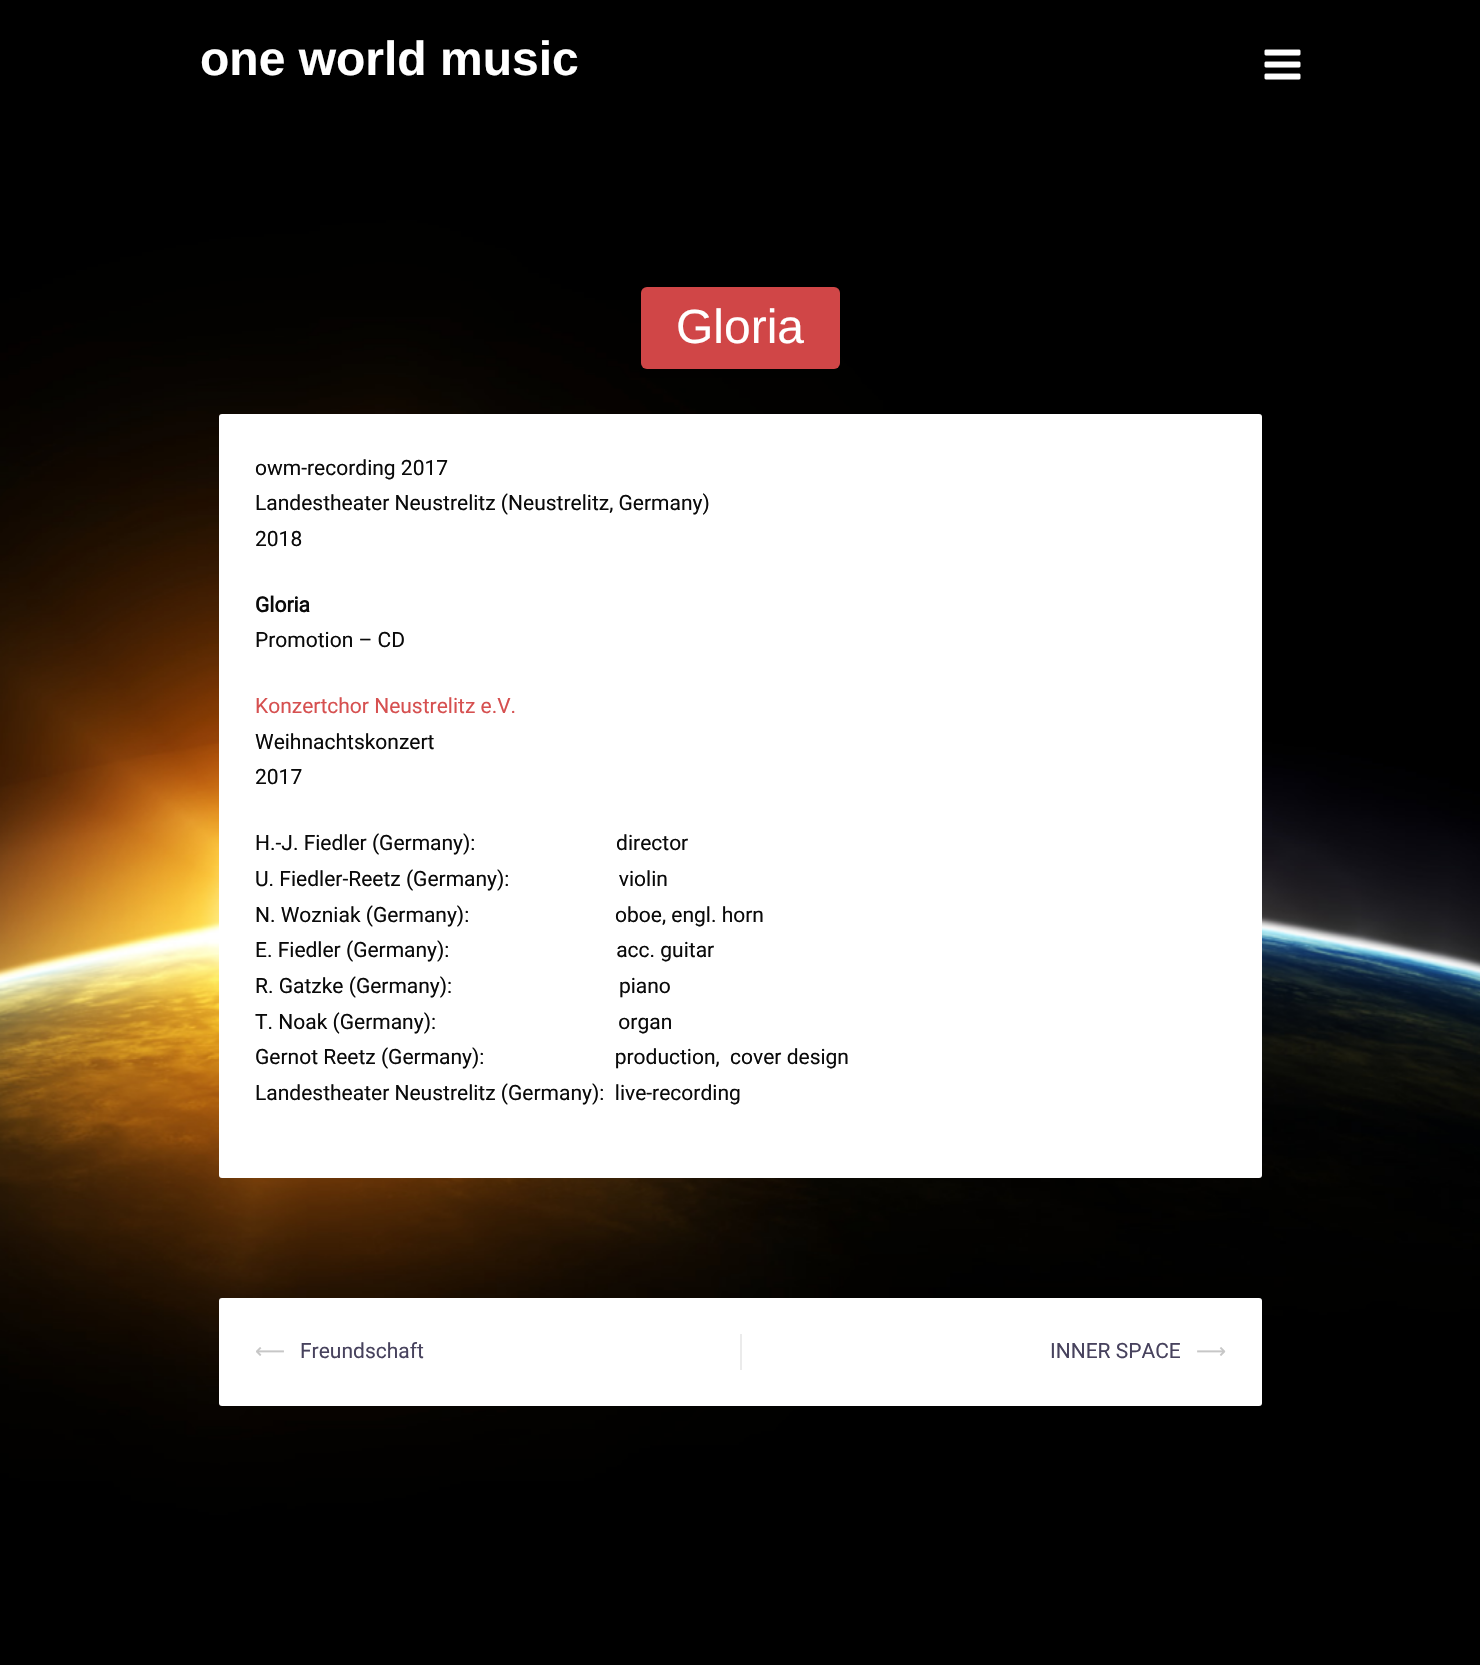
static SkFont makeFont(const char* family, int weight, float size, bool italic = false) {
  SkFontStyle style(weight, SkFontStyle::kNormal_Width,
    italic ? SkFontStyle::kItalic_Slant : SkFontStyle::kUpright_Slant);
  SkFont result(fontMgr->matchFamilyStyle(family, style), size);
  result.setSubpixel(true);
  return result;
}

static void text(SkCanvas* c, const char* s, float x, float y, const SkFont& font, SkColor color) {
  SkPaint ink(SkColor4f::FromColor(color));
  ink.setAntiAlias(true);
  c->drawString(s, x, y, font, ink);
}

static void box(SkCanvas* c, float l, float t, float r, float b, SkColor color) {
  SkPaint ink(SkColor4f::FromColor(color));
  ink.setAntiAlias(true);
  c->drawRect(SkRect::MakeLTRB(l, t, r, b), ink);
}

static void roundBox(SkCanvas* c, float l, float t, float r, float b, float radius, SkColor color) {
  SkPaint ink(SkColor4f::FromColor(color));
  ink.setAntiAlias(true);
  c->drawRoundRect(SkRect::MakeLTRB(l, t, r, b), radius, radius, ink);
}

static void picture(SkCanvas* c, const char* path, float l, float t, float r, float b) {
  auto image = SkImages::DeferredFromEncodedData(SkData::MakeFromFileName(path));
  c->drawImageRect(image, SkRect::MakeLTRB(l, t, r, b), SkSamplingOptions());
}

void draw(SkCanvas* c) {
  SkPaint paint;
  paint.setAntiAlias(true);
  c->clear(0xffffffff);
  picture(c, "img_01.png", 0, 0, 1480, 1665);
  SkFont face1 = makeFont("Liberation Sans", 700, 48);
  text(c, "one world music", 200, 75, face1, 0xffffffff);
  picture(c, "img_02.png", 1264, 49, 1301, 80);
  roundBox(c, 641, 287, 840, 369, 6, 0xffd04647);
  SkFont face2 = makeFont("Liberation Sans", 400, 48);
  text(c, "Gloria", 676, 343, face2, 0xffffffff);
  roundBox(c, 219, 414, 1262, 1178, 3, 0xffffffff);
  SkFont face3 = makeFont("Roboto", 400, 21);
  text(c, "owm-recording 2017", 255, 475, face3, 0xff0a0a0a);
  text(c, "Landestheater Neustrelitz (Neustrelitz, Germany)", 255, 510, face3, 0xff0a0a0a);
  text(c, "2018", 255, 546, face3, 0xff0a0a0a);
  SkFont face4 = makeFont("Roboto", 700, 21);
  text(c, "Gloria", 255, 612, face4, 0xff0a0a0a);
  text(c, "Promotion – CD", 255, 647, face3, 0xff0a0a0a);
  text(c, "Konzertchor Neustrelitz e.V.", 255, 713, face3, 0xffd65050);
  text(c, "Weihnachtskonzert", 255, 749, face3, 0xff0a0a0a);
  text(c, "2017", 255, 784, face3, 0xff0a0a0a);
  text(c, "H.-J. Fiedler (Germany):                           director", 255, 850, face3, 0xff0a0a0a);
  text(c, "U. Fiedler-Reetz (Germany):                     violin", 255, 886, face3, 0xff0a0a0a);
  text(c, "N. Wozniak (Germany):                            oboe, engl. horn", 255, 922, face3, 0xff0a0a0a);
  text(c, "E. Fiedler (Germany):                                acc. guitar", 255, 957, face3, 0xff0a0a0a);
  text(c, "R. Gatzke (Germany):                                piano", 255, 993, face3, 0xff0a0a0a);
  text(c, "T. Noak (Germany):                                   organ", 255, 1029, face3, 0xff0a0a0a);
  text(c, "Gernot Reetz (Germany):                         production,  cover design", 255, 1064, face3, 0xff0a0a0a);
  text(c, "Landestheater Neustrelitz (Germany):  live-recording", 255, 1100, face3, 0xff0a0a0a);
  roundBox(c, 219, 1298, 1262, 1406, 3, 0xffffffff);
  box(c, 740, 1334, 742, 1370, 0xffebebeb);
  SkFont face5 = makeFont("DejaVu Sans", 400, 21);
  text(c, "⟵", 255, 1358, face5, 0xffc7c7c7);
  text(c, "Freundschaft", 300, 1358, face3, 0xff47425d);
  text(c, "INNER SPACE", 1050, 1358, face3, 0xff47425d);
  text(c, "⟶", 1196, 1358, face5, 0xffc7c7c7);
}
